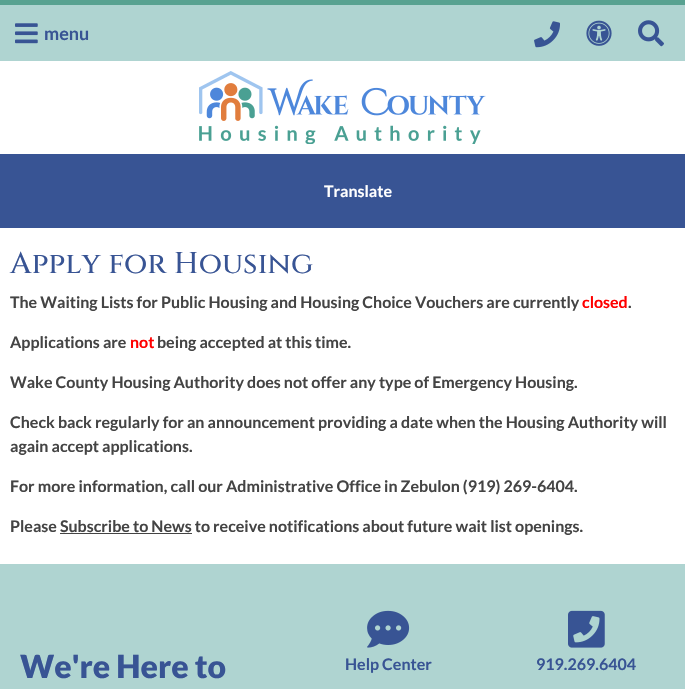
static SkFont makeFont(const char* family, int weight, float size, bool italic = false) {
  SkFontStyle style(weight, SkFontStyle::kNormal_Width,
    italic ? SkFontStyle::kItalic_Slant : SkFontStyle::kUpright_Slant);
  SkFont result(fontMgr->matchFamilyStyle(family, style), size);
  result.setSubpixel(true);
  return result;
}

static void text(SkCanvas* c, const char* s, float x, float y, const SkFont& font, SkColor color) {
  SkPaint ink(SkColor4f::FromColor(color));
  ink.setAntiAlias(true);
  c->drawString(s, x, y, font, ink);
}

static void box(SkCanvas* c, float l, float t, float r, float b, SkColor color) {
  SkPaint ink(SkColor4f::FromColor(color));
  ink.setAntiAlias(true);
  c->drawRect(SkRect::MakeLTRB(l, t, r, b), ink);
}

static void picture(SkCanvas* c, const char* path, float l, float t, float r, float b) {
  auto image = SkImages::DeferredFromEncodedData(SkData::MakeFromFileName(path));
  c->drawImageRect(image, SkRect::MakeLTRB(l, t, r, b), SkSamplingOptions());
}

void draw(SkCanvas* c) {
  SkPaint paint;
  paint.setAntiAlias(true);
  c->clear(0xffffffff);
  box(c, 0, 0, 685, 5, 0xff58a291);
  box(c, 0, 5, 685, 61, 0xffafd4d1);
  picture(c, "img_01.png", 15, 23, 38, 44);
  SkFont face1 = makeFont("Lato", 700, 18);
  text(c, "menu", 44, 40, face1, 0xff385494);
  picture(c, "img_02.png", 534, 21, 560, 48);
  picture(c, "img_03.png", 586, 20, 612, 46);
  picture(c, "img_04.png", 638, 20, 664, 47);
  picture(c, "img_05.png", 199, 71, 486, 144);
  box(c, 0, 154, 685, 228, 0xff385494);
  SkFont face2 = makeFont("Lato", 700, 16);
  text(c, "Translate", 324, 197, face2, 0xffffffff);
  SkFont face3 = makeFont("Cinzel", 500, 30);
  text(c, "Apply for Housing", 10, 273, face3, 0xff385494);
  text(c, "The Waiting Lists for Public Housing and Housing Choice Vouchers are currently", 10, 308, face2, 0xff444444);
  text(c, "closed", 582, 308, face2, 0xffff0000);
  text(c, ".", 628, 308, face2, 0xff444444);
  text(c, "Applications are", 10, 348, face2, 0xff444444);
  text(c, "not", 130, 348, face2, 0xffff0000);
  text(c, "being accepted at this time.", 157, 348, face2, 0xff444444);
  text(c, "Wake County Housing Authority does not offer any type of Emergency Housing.", 10, 388, face2, 0xff444444);
  text(c, "Check back regularly for an announcement providing a date when the Housing Authority will", 10, 428, face2, 0xff444444);
  text(c, "again accept applications.", 10, 452, face2, 0xff444444);
  text(c, "For more information, call our Administrative Office in Zebulon (919) 269-6404.", 10, 492, face2, 0xff444444);
  text(c, "Please Subscribe to News to receive notifications about future wait list openings.", 10, 532, face2, 0xff444444);
  box(c, 60, 533, 192, 534, 0xff444444);
  box(c, 0, 564, 685, 689, 0xffafd4d1);
  SkFont face4 = makeFont("Lato", 900, 32);
  text(c, "We're Here to", 20, 678, face4, 0xff385494);
  picture(c, "img_06.png", 367, 610, 410, 648);
  text(c, "Help Center", 345, 670, face2, 0xff385494);
  picture(c, "img_07.png", 568, 610, 605, 648);
  text(c, "919.269.6404", 536, 670, face2, 0xff385494);
}
